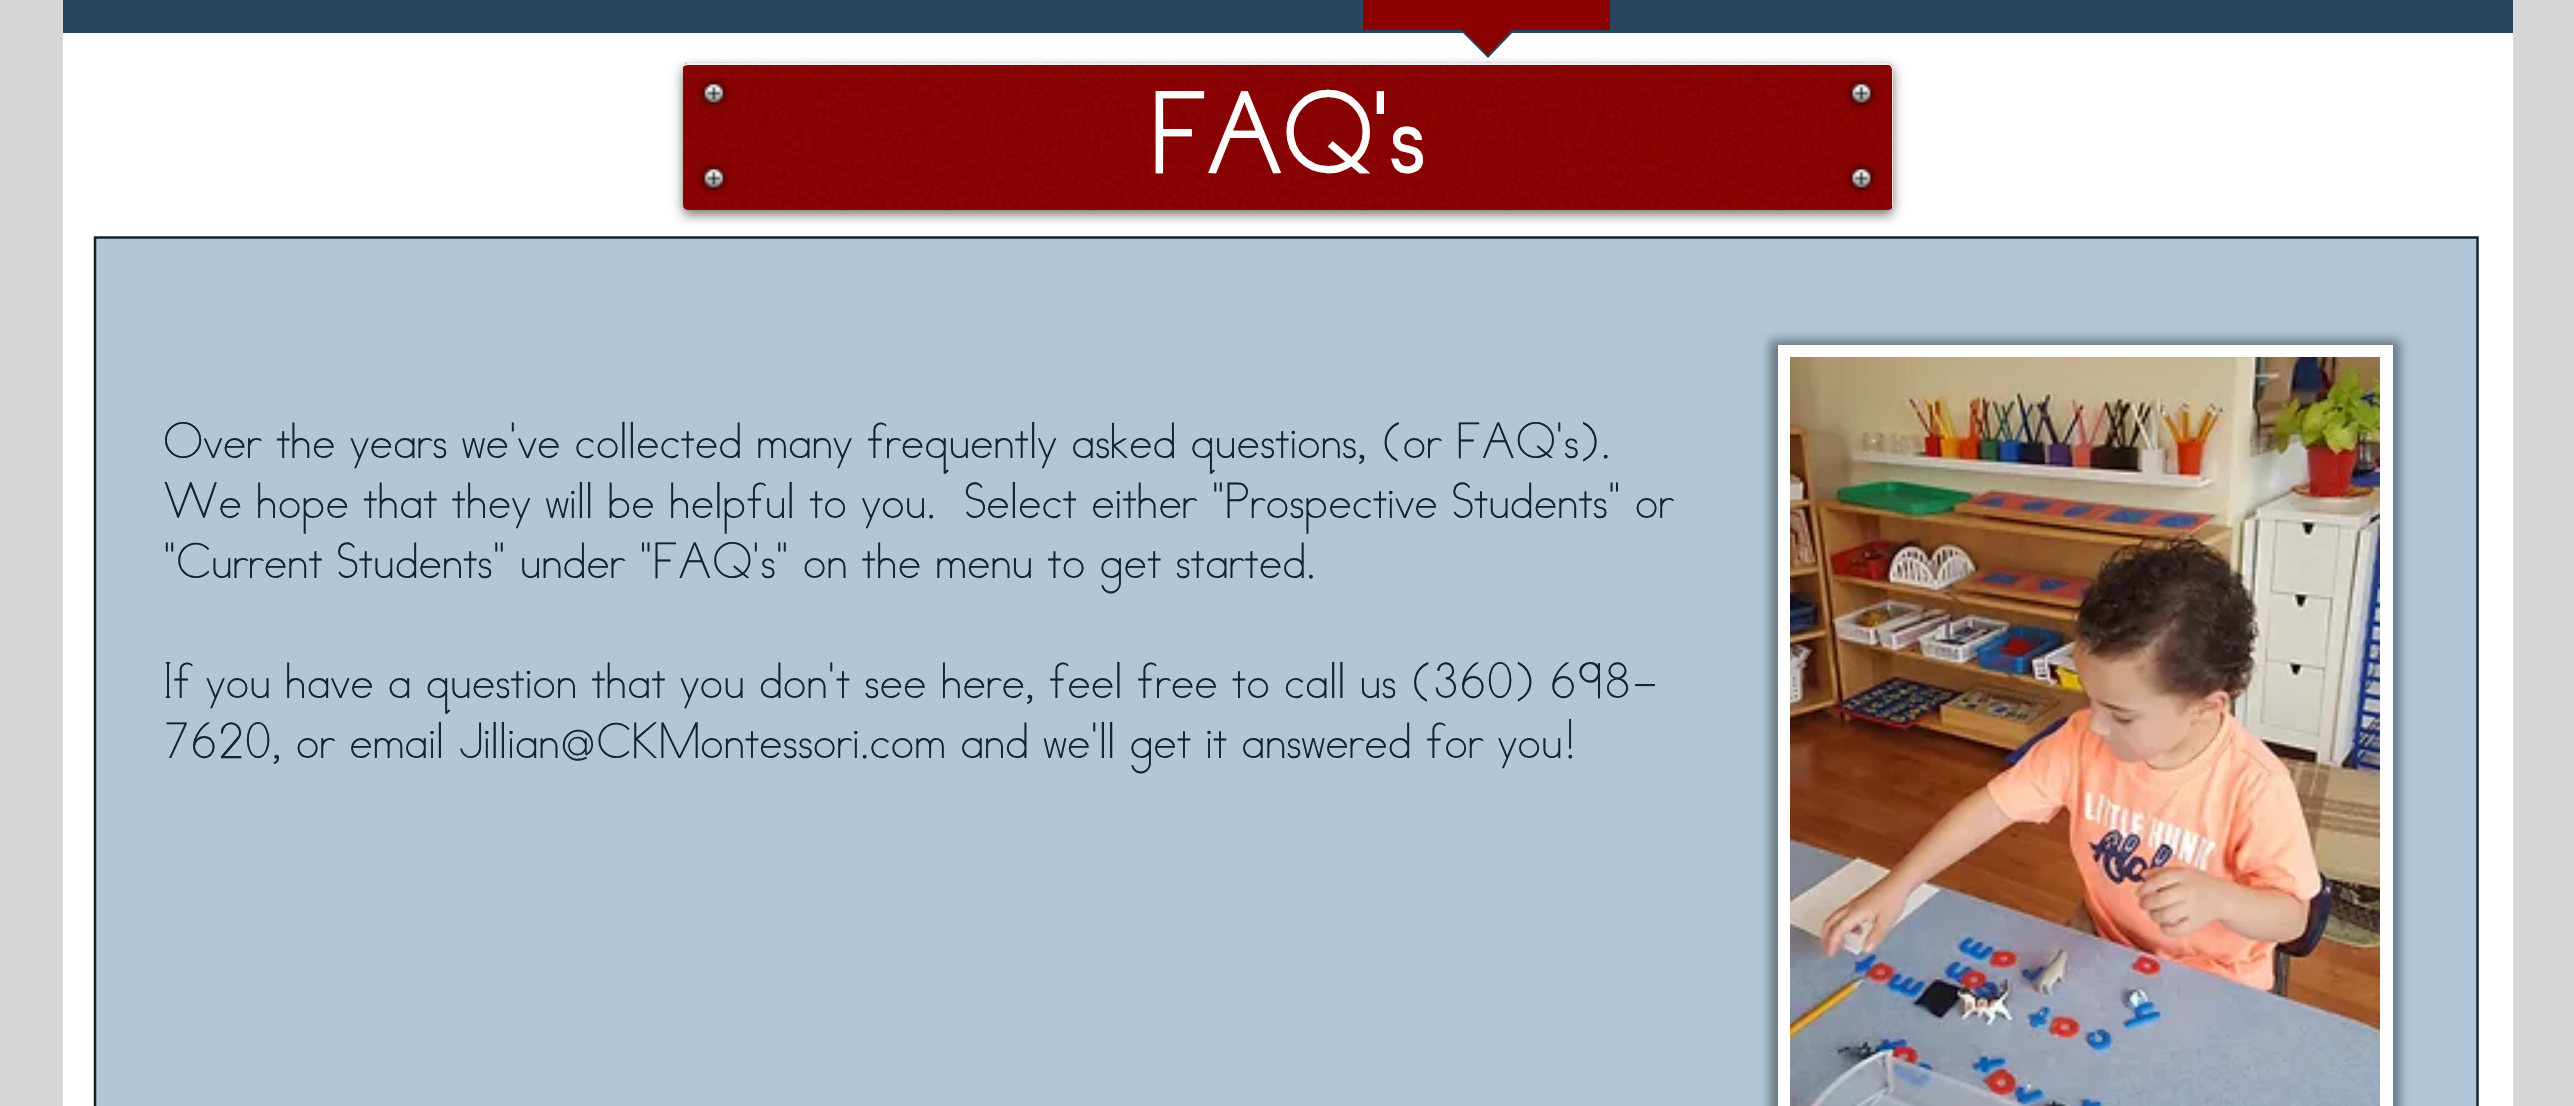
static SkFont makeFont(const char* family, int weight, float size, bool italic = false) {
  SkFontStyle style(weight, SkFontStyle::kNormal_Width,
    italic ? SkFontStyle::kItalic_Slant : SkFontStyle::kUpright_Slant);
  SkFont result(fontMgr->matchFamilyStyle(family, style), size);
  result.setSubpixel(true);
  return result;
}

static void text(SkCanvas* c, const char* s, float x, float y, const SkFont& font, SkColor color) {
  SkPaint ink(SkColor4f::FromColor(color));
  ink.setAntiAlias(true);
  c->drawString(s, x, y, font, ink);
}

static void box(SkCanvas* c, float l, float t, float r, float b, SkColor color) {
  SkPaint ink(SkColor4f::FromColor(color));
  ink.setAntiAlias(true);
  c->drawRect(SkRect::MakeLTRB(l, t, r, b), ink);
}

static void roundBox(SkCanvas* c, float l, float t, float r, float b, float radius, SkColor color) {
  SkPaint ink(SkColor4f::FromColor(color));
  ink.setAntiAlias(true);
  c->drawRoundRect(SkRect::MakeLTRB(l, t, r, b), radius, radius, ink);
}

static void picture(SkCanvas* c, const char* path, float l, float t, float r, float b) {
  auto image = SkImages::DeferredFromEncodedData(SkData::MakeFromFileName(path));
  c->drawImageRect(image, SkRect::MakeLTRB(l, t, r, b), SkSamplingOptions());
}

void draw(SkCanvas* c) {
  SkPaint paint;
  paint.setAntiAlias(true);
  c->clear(0xffd6d6d6);
  box(c, 63, 0, 2513, 33, 0xff28475d);
  box(c, 1363, 0, 1610, 30, 0xff8b0000);
  box(c, 63, 33, 2513, 1106, 0xffffffff);
  paint.setColor(0xff28475d);
  c->drawPath(SkPathBuilder().moveTo(1460, 30).lineTo(1515, 30).lineTo(1488, 58).close().detach(), paint);
  paint.setColor(0xff8b0000);
  c->drawPath(SkPathBuilder().moveTo(1462, 30).lineTo(1512, 30).lineTo(1488, 55).close().detach(), paint);
  paint.setColor(0x87000000);
  paint.setMaskFilter(SkMaskFilter::MakeBlur(kNormal_SkBlurStyle, 6));
  c->drawRoundRect(SkRect::MakeLTRB(683, 68, 1893, 215), 5, 5, paint);
  paint.setMaskFilter(nullptr);
  roundBox(c, 683, 63, 1893, 210, 5, 0xff8b0000);
  picture(c, "img_01.png", 683, 62, 1892, 209);
  paint.setColor(0xebffffff);
  c->drawPath(SkPathBuilder().moveTo(688, 65).lineTo(1888, 65).cubicTo(1890, 65, 1892, 67, 1892, 70).lineTo(1892, 208).cubicTo(1893, 207, 1893, 206, 1893, 205).lineTo(1893, 68).cubicTo(1893, 65, 1891, 63, 1888, 63).lineTo(688, 63).cubicTo(686, 63, 683, 65, 683, 67).cubicTo(684, 66, 686, 65, 688, 65).close().detach(), paint);
  picture(c, "img_02.png", 697, 76, 731, 110);
  SkFont face1 = makeFont("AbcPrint", 700, 100);
  text(c, "FAQ's", 1149, 173, face1, 0xffffffff);
  picture(c, "img_03.png", 1844, 76, 1878, 110);
  picture(c, "img_04.png", 697, 161, 731, 195);
  picture(c, "img_05.png", 1844, 161, 1878, 195);
  box(c, 96, 238, 2477, 1106, 0xffafc7d8);
  paint.setStyle(SkPaint::kStroke_Style);
  paint.setStrokeWidth(2.5f);
  paint.setColor(0xff14232e);
  c->drawPath(SkPathBuilder().moveTo(2477.5f, 237.5f).lineTo(2477.5f, 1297.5f).lineTo(95, 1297.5f).lineTo(95, 237.5f).close().detach(), paint);
  SkFont face2 = makeFont("AbcPrint", 400, 45);
  text(c, "Over the years we've collected many frequently asked questions, (or FAQ's).", 163, 458, face2, 0xff14232e);
  text(c, "We hope that they will be helpful to you.  Select either \"Prospective Students\" or", 163, 518, face2, 0xff14232e);
  text(c, "\"Current Students\" under \"FAQ's\" on the menu to get started.", 163, 578, face2, 0xff14232e);
  text(c, "If you have a question that you don't see here, feel free to call us (360) 698-", 163, 698, face2, 0xff14232e);
  text(c, "7620, or email Jillian@CKMontessori.com and we'll get it answered for you!", 163, 758, face2, 0xff14232e);
  paint.setStyle(SkPaint::kFill_Style);
  paint.setColor(0x66000000);
  paint.setMaskFilter(SkMaskFilter::MakeBlur(kNormal_SkBlurStyle, 5));
  c->drawRect(SkRect::MakeLTRB(1770, 340, 2400, 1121), paint);
  paint.setMaskFilter(nullptr);
  box(c, 1778, 345, 2393, 1106, 0xffffffff);
  picture(c, "img_06.png", 1790, 357, 2380, 1106);
}
